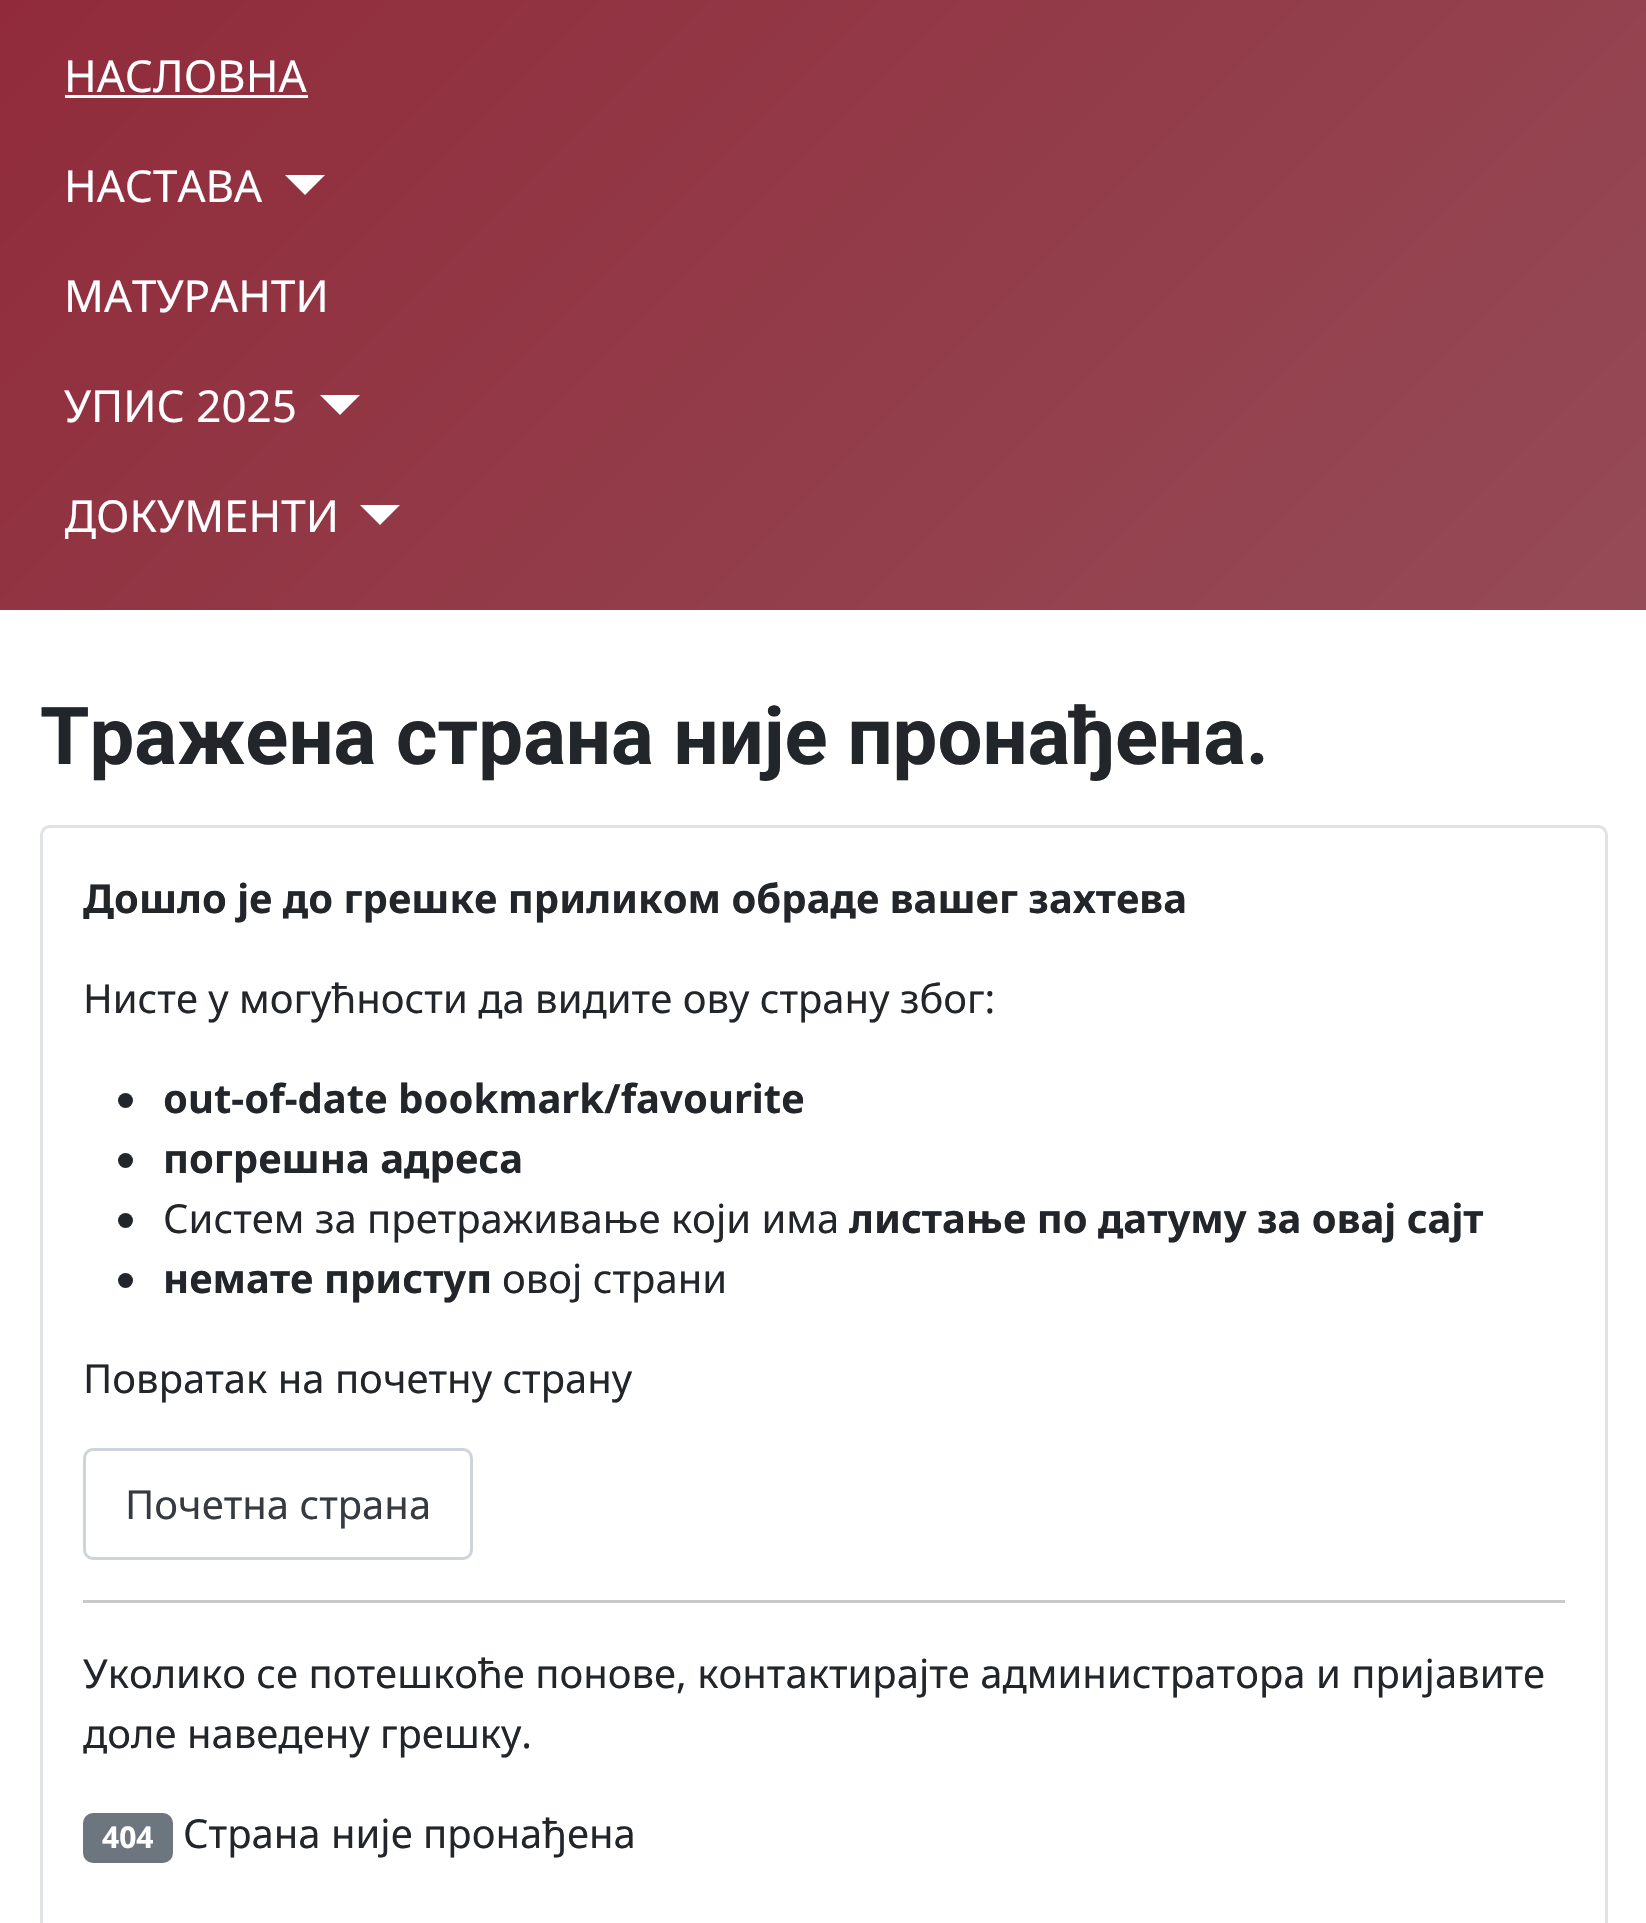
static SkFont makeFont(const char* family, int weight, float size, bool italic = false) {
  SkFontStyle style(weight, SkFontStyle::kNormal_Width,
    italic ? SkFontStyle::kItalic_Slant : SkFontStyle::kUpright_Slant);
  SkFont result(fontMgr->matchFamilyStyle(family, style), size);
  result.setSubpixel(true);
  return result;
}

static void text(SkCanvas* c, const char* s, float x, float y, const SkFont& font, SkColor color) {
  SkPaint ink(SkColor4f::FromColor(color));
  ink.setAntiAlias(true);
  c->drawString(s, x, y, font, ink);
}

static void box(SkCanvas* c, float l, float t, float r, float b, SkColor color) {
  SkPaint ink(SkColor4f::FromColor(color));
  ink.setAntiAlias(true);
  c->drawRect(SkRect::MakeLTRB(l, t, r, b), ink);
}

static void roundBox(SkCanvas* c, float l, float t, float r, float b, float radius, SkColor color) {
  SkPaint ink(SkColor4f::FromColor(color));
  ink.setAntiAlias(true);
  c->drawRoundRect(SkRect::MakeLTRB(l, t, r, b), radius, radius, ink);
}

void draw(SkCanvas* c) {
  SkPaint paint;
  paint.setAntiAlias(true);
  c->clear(0xffffffff);
  {
    const SkColor colors[] = {0xff912b3b, 0xff954b56};
    const float stops[] = {0, 1};
    const SkPoint ends[] = {{259, -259}, {1388, 869}};
    paint.setShader(SkGradientShader::MakeLinear(ends, colors, stops, 2, SkTileMode::kClamp));
    paint.setAlpha(255);
  }
  c->drawRect(SkRect::MakeLTRB(0, 0, 1646, 610), paint);
  SkFont face1 = makeFont("Noto Sans", 400, 44);
  text(c, "НАСЛОВНА", 64, 92, face1, 0xffffffff);
  box(c, 65, 95, 308, 98, 0xffffffff);
  text(c, "НАСТАВА", 64, 202, face1, 0xffffffff);
  paint.setShader(nullptr);
  paint.setColor(0xffffffff);
  c->drawPath(SkPathBuilder().moveTo(285, 175).lineTo(325, 175).lineTo(305, 195).close().detach(), paint);
  text(c, "МАТУРАНТИ", 64, 312, face1, 0xffffffff);
  text(c, "УПИС 2025", 64, 422, face1, 0xffffffff);
  c->drawPath(SkPathBuilder().moveTo(320, 395).lineTo(360, 395).lineTo(340, 415).close().detach(), paint);
  c->save();
  c->clipRect(SkRect::MakeLTRB(65, 483, 400, 548));
  text(c, "ДОКУМЕНТИ", 64, 532, face1, 0xffffffff);
  c->restore();
  c->drawPath(SkPathBuilder().moveTo(360, 505).lineTo(400, 505).lineTo(380, 525).close().detach(), paint);
  SkFont face2 = makeFont("Roboto", 700, 79.75f);
  text(c, "Тражена страна није пронађена.", 40, 764, face2, 0xff22262a);
  paint.setStyle(SkPaint::kStroke_Style);
  paint.setStrokeWidth(3);
  paint.setColor(0xffdfe3e7);
  c->drawRoundRect(SkRect::MakeLTRB(41.5f, 826.5f, 1606.5f, 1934.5f), 8.5f, 8.5f, paint);
  SkFont face3 = makeFont("Noto Sans", 700, 40);
  text(c, "Дошло је до грешке приликом обраде вашег захтева", 83, 913, face3, 0xff22262a);
  SkFont face4 = makeFont("Noto Sans", 400, 40);
  text(c, "Нисте у могућности да видите ову страну због:", 83, 1013, face4, 0xff22262a);
  paint.setStyle(SkPaint::kFill_Style);
  paint.setColor(0xff22262a);
  c->drawCircle(125.5f, 1100.5f, 7.5f, paint);
  text(c, "out-of-date bookmark/favourite", 163, 1113, face3, 0xff22262a);
  c->drawCircle(125.5f, 1160.5f, 7.5f, paint);
  text(c, "погрешна адреса", 163, 1173, face3, 0xff22262a);
  c->drawCircle(125.5f, 1220.5f, 7.5f, paint);
  text(c, "Систем за претраживање који има", 163, 1233, face4, 0xff22262a);
  text(c, "листање по датуму за овај сајт", 849, 1233, face3, 0xff22262a);
  c->drawCircle(125.5f, 1280.5f, 7.5f, paint);
  text(c, "немате приступ", 163, 1293, face3, 0xff22262a);
  text(c, "овој страни", 502, 1293, face4, 0xff22262a);
  text(c, "Повратак на почетну страну", 83, 1393, face4, 0xff22262a);
  paint.setStyle(SkPaint::kStroke_Style);
  paint.setColor(0xffced4da);
  c->drawRoundRect(SkRect::MakeLTRB(84.5f, 1449.5f, 471.5f, 1558.5f), 8.5f, 8.5f, paint);
  text(c, "Почетна страна", 125, 1519, face4, 0xff353b41);
  box(c, 83, 1600, 1565, 1603, 0xffc8c9ca);
  text(c, "Уколико се потешкоће понове, контактирајте администратора и пријавите", 83, 1688, face4, 0xff22262a);
  text(c, "доле наведену грешку.", 83, 1748, face4, 0xff22262a);
  roundBox(c, 83, 1813, 173, 1863, 10, 0xff6d757e);
  SkFont face5 = makeFont("Noto Sans", 700, 30);
  text(c, "404", 102, 1848, face5, 0xffffffff);
  text(c, "Страна није пронађена", 183, 1848, face4, 0xff22262a);
}
